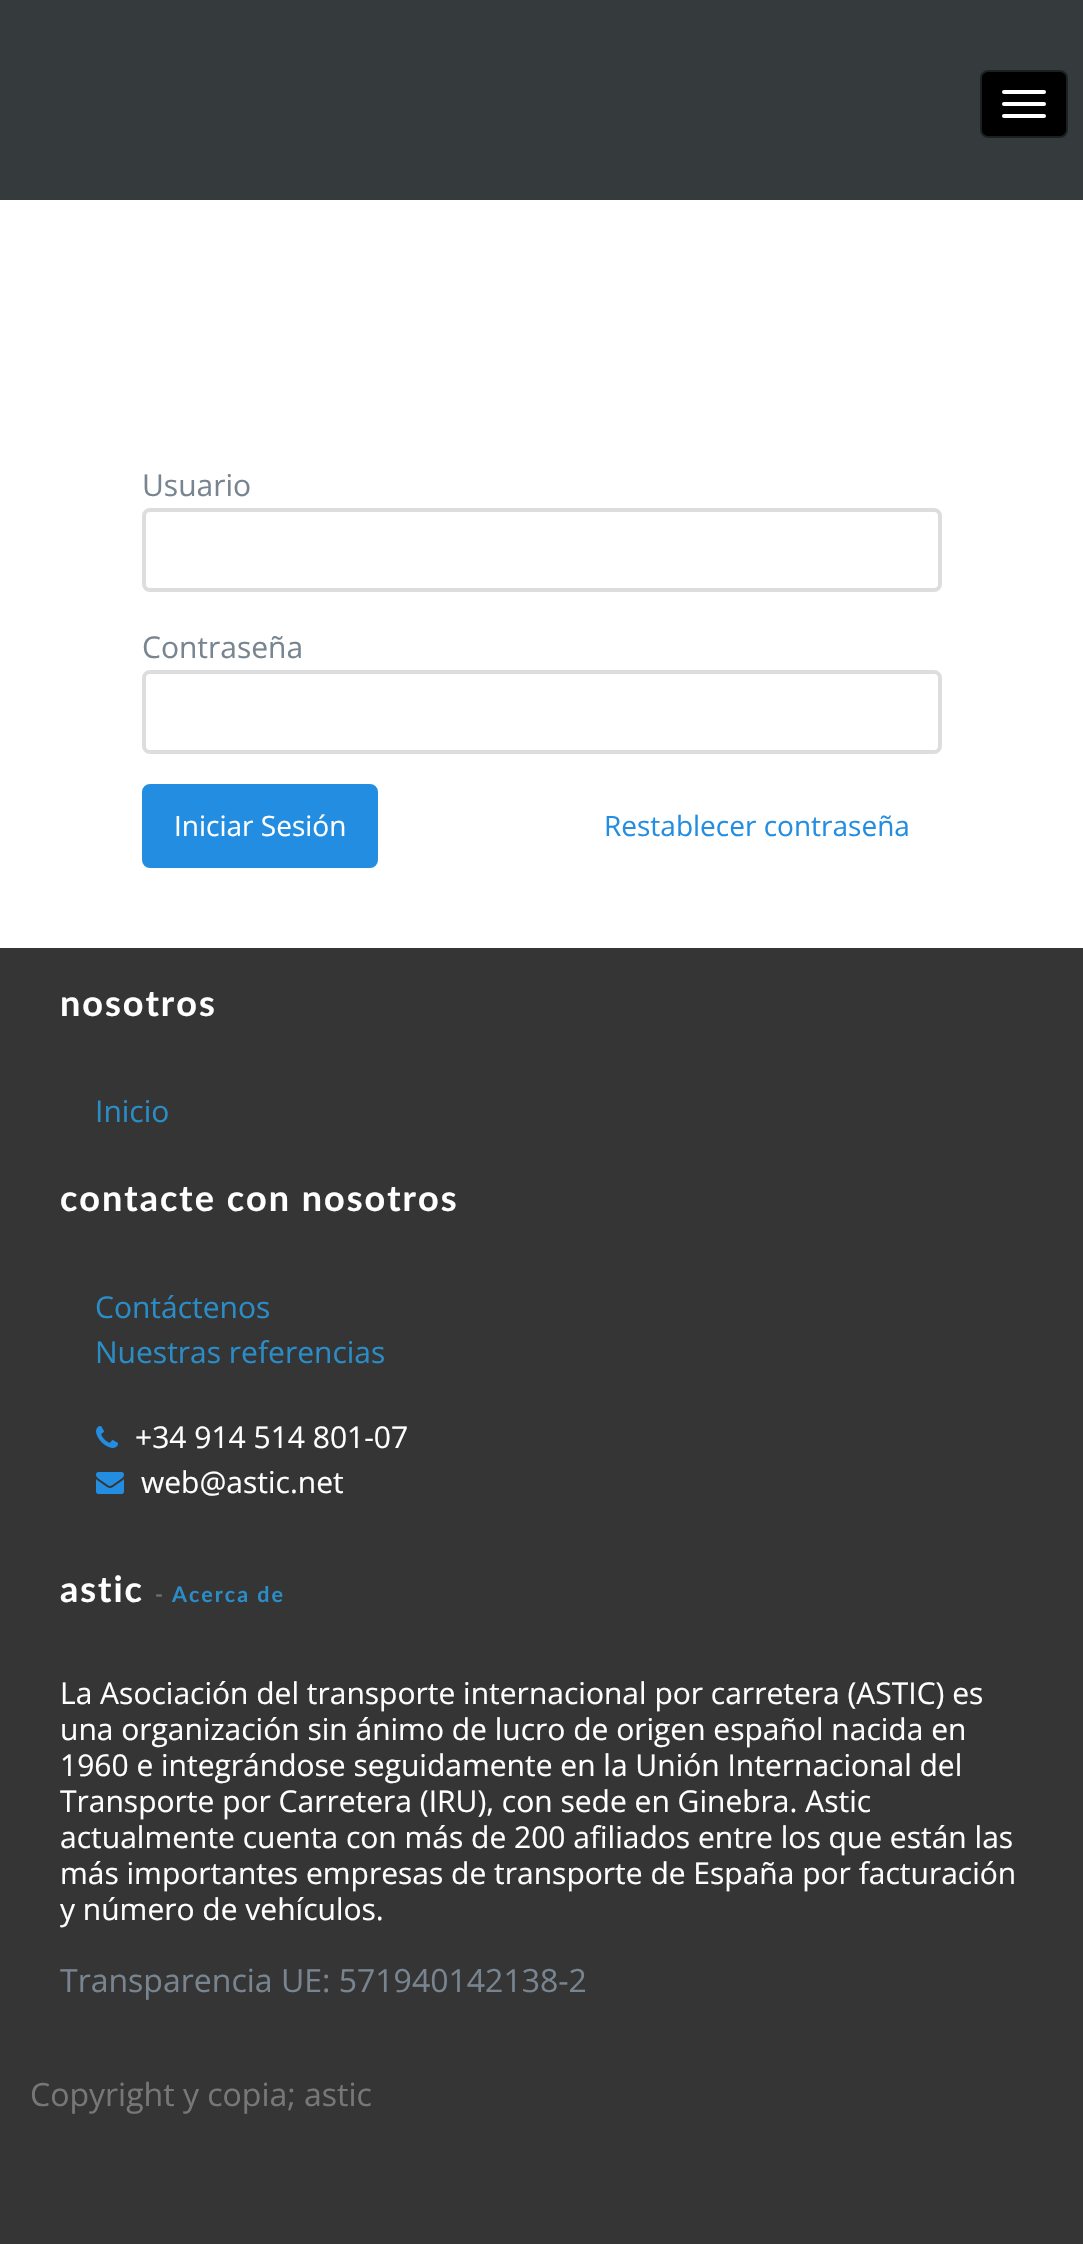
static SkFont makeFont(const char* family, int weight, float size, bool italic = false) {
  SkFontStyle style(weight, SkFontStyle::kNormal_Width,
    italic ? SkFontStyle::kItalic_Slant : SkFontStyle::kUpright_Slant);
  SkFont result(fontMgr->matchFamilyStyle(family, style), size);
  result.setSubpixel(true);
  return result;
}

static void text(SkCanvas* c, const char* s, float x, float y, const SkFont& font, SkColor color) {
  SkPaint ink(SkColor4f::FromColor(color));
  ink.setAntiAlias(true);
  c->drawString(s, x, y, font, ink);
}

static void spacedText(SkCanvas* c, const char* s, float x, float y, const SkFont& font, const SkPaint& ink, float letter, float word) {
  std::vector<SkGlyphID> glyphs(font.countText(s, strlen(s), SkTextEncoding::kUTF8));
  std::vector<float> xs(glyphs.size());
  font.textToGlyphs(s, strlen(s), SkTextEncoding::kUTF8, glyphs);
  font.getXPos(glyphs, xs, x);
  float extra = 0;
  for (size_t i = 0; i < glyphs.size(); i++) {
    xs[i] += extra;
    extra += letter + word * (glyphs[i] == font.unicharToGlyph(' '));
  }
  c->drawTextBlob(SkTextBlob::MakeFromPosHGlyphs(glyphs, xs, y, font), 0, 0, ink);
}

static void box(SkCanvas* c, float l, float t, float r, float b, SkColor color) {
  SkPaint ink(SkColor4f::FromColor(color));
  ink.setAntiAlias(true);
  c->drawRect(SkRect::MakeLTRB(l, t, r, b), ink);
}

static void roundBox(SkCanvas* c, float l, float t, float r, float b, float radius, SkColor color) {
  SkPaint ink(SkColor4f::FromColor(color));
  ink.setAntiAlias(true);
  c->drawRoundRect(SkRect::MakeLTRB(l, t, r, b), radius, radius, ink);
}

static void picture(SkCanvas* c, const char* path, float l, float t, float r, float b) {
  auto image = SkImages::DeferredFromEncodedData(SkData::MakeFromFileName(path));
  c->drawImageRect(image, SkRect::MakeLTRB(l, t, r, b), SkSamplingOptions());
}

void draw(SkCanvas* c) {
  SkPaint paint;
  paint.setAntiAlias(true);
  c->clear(0xffffffff);
  box(c, 0, 0, 1083, 200, 0xff353a3d);
  paint.setColor(0xff000000);
  c->drawRoundRect(SkRect::MakeLTRB(981, 71, 1067, 137), 7, 7, paint);
  paint.setStyle(SkPaint::kStroke_Style);
  paint.setStrokeWidth(2);
  paint.setColor(0xff1d2022);
  c->drawRoundRect(SkRect::MakeLTRB(981, 71, 1067, 137), 7, 7, paint);
  roundBox(c, 1002, 90, 1046, 94, 2, 0xffffffff);
  roundBox(c, 1002, 102, 1046, 106, 2, 0xffffffff);
  roundBox(c, 1002, 114, 1046, 118, 2, 0xffffffff);
  SkFont face1 = makeFont("Open Sans", 400, 30);
  text(c, "Usuario", 142, 496, face1, 0xff788590);
  paint.setStrokeWidth(4);
  paint.setColor(0xffdddddd);
  c->drawRoundRect(SkRect::MakeLTRB(144, 510, 940, 590), 6, 6, paint);
  text(c, "Contraseña", 142, 658, face1, 0xff788590);
  c->drawRoundRect(SkRect::MakeLTRB(144, 672, 940, 752), 6, 6, paint);
  paint.setStyle(SkPaint::kFill_Style);
  paint.setColor(0xff238ee1);
  c->drawRoundRect(SkRect::MakeLTRB(143, 785, 377, 867), 7, 7, paint);
  paint.setStyle(SkPaint::kStroke_Style);
  paint.setStrokeWidth(2);
  c->drawRoundRect(SkRect::MakeLTRB(143, 785, 377, 867), 7, 7, paint);
  SkFont face2 = makeFont("Open Sans", 400, 28);
  text(c, "Iniciar Sesión", 174, 836, face2, 0xffffffff);
  text(c, "Restablecer contraseña", 604, 836, face2, 0xff238ee1);
  box(c, 0, 948, 1083, 2244, 0xff353535);
  SkFont face3 = makeFont("Lato", 700, 36);
  paint.setStyle(SkPaint::kFill_Style);
  paint.setColor(0xffffffff);
  spacedText(c, "nosotros", 60, 1016, face3, paint, 2, 0);
  text(c, "Inicio", 95, 1122, face1, 0xff2a8dc7);
  spacedText(c, "contacte con nosotros", 60, 1211, face3, paint, 2, 0);
  text(c, "Contáctenos", 95, 1318, face1, 0xff2a8dc7);
  text(c, "Nuestras referencias", 95, 1363, face1, 0xff2a8dc7);
  picture(c, "img_01.png", 96, 1426, 118, 1448);
  text(c, "+34 914 514 801-07", 135, 1448, face1, 0xffffffff);
  picture(c, "img_02.png", 96, 1472, 124, 1494);
  text(c, "web@astic.net", 141, 1493, face1, 0xffffffff);
  spacedText(c, "astic", 60, 1602, face3, paint, 2, 0);
  SkFont face4 = makeFont("Lato", 700, 21.5f);
  paint.setColor(0xff6f6f6f);
  spacedText(c, "-", 155, 1602, face4, paint, 2, 0);
  paint.setColor(0xff2a8dc7);
  spacedText(c, "Acerca de", 172, 1602, face4, paint, 2, 0);
  text(c, "La Asociación del transporte internacional por carretera (ASTIC) es", 60, 1704, face1, 0xffffffff);
  text(c, "una organización sin ánimo de lucro de origen español nacida en", 60, 1740, face1, 0xffffffff);
  text(c, "1960 e integrándose seguidamente en la Unión Internacional del", 60, 1776, face1, 0xffffffff);
  text(c, "Transporte por Carretera (IRU), con sede en Ginebra. Astic", 60, 1812, face1, 0xffffffff);
  text(c, "actualmente cuenta con más de 200 afiliados entre los que están las", 60, 1848, face1, 0xffffffff);
  text(c, "más importantes empresas de transporte de España por facturación", 60, 1884, face1, 0xffffffff);
  text(c, "y número de vehículos.", 60, 1920, face1, 0xffffffff);
  SkFont face5 = makeFont("Open Sans", 400, 32);
  text(c, "Transparencia UE: 571940142138-2", 60, 1992, face5, 0xff788590);
  text(c, "Copyright y copia; astic", 30, 2106, face5, 0xff777777);
}
